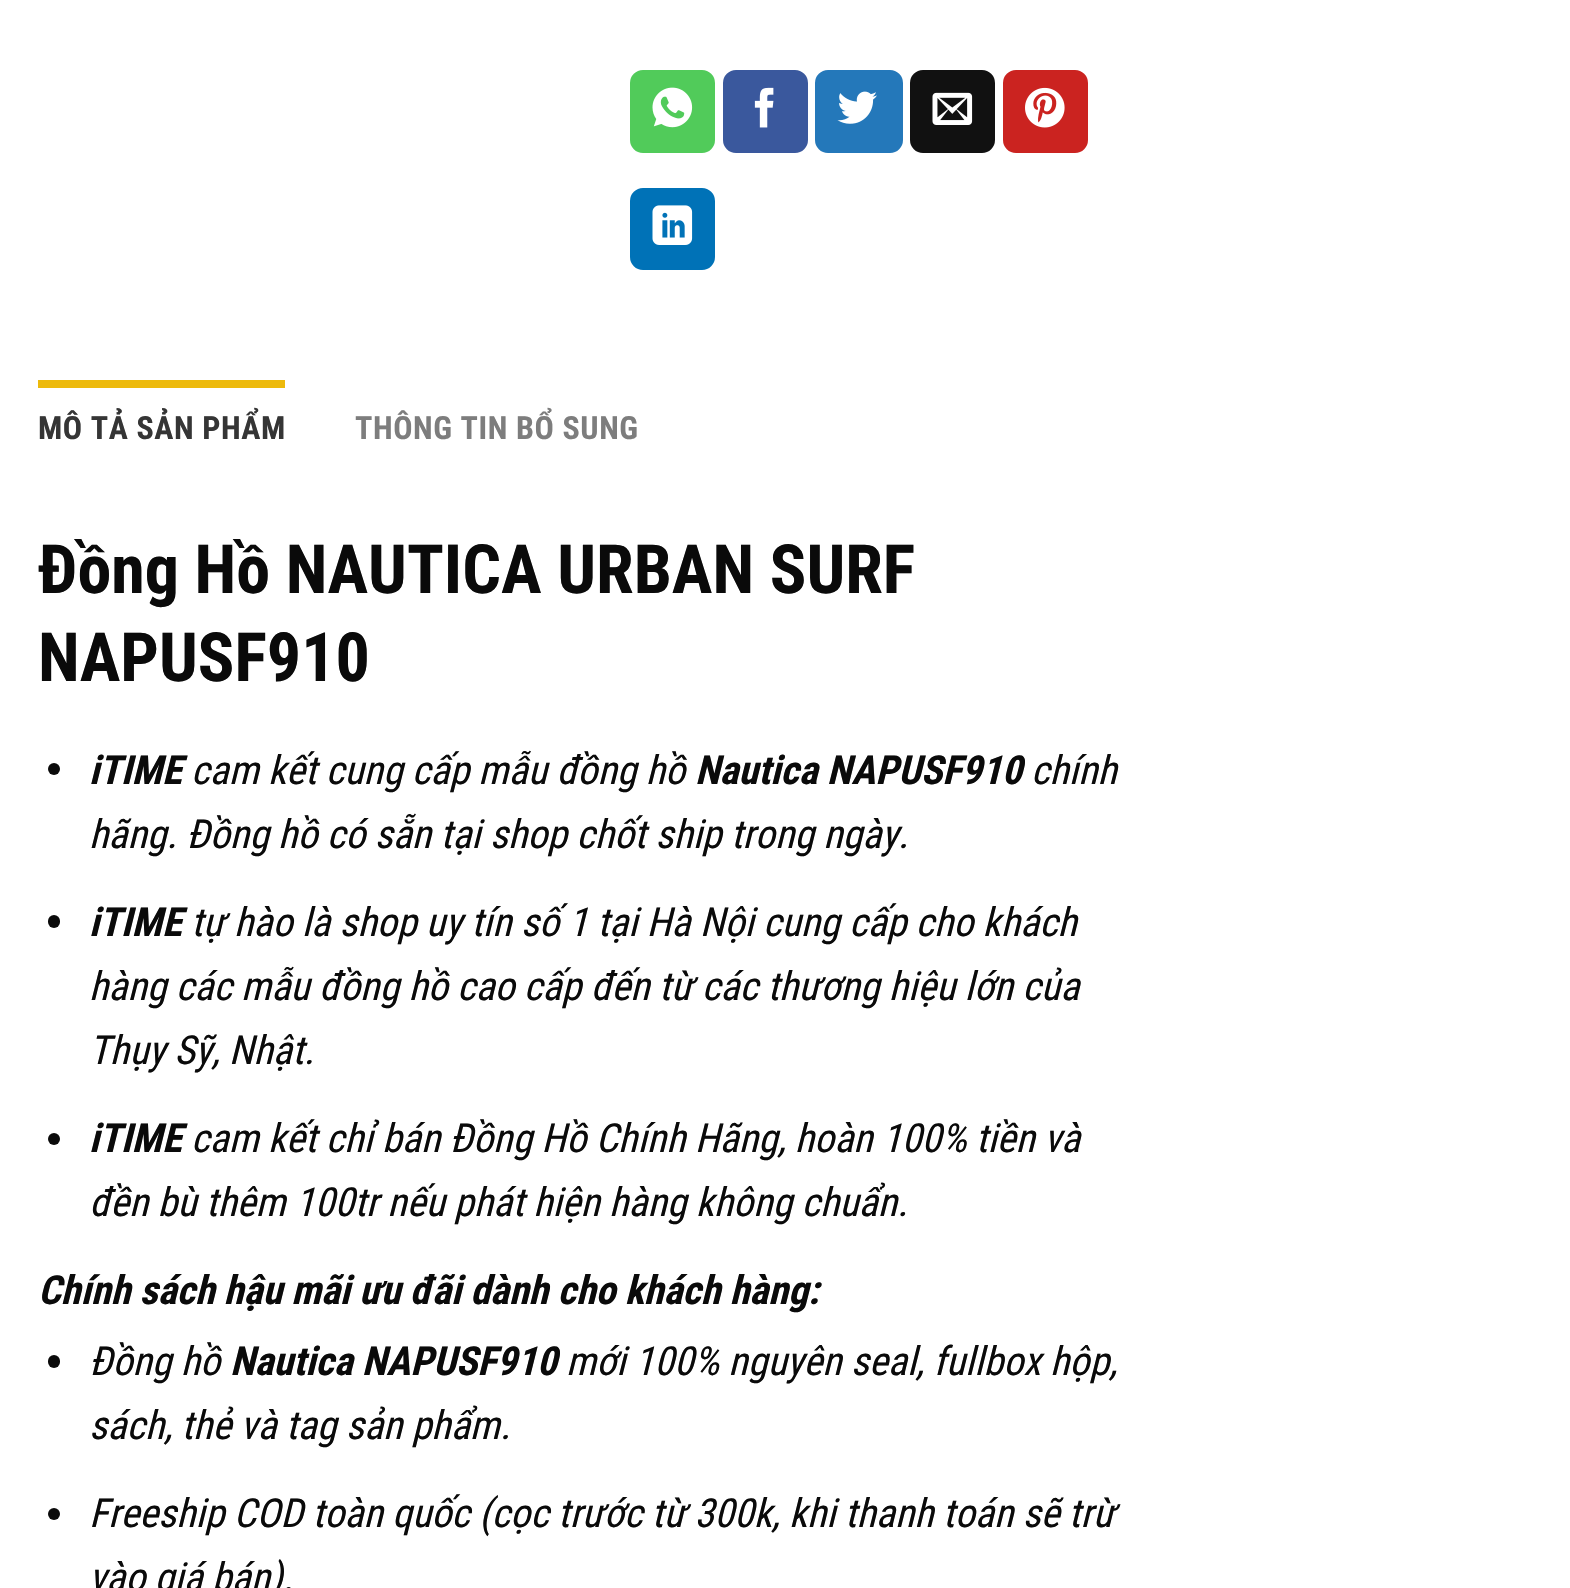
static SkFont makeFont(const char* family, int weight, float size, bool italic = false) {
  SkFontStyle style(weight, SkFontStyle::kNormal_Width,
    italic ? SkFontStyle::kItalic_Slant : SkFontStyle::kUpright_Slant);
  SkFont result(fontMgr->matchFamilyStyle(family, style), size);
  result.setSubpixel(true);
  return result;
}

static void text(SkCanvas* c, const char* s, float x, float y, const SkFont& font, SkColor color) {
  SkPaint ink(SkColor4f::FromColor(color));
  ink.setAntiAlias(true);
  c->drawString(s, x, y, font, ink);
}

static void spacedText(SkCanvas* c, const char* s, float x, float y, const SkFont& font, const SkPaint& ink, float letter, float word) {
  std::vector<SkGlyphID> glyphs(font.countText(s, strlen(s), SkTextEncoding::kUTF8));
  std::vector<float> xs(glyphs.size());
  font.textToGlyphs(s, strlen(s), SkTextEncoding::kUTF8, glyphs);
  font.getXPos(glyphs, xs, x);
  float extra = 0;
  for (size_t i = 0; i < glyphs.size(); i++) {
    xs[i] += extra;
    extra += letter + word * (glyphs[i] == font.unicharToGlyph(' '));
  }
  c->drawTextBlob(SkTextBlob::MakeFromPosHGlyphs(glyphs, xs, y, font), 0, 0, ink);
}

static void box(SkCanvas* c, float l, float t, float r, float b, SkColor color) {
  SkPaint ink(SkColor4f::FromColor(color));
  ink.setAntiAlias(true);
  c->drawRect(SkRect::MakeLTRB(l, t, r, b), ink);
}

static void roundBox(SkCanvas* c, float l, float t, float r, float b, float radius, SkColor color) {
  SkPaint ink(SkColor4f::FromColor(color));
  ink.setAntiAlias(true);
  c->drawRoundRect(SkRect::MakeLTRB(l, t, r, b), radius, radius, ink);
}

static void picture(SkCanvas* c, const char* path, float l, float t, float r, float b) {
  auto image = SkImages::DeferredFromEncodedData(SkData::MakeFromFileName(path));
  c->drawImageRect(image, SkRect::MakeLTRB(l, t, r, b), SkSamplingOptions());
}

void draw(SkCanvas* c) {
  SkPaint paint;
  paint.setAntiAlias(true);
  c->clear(0xffffffff);
  paint.setColor(0xff51cb5a);
  c->drawRoundRect(SkRect::MakeLTRB(631.5f, 71.5f, 713.5f, 151.5f), 11.5f, 11.5f, paint);
  paint.setStyle(SkPaint::kStroke_Style);
  paint.setStrokeWidth(3);
  c->drawRoundRect(SkRect::MakeLTRB(631.5f, 71.5f, 713.5f, 151.5f), 11.5f, 11.5f, paint);
  picture(c, "img_01.png", 652, 87, 693, 128);
  paint.setStyle(SkPaint::kFill_Style);
  paint.setColor(0xff3a589d);
  c->drawRoundRect(SkRect::MakeLTRB(724.5f, 71.5f, 806.5f, 151.5f), 11.5f, 11.5f, paint);
  paint.setStyle(SkPaint::kStroke_Style);
  c->drawRoundRect(SkRect::MakeLTRB(724.5f, 71.5f, 806.5f, 151.5f), 11.5f, 11.5f, paint);
  picture(c, "img_02.png", 754, 87, 774, 128);
  paint.setStyle(SkPaint::kFill_Style);
  paint.setColor(0xff2478ba);
  c->drawRoundRect(SkRect::MakeLTRB(816.5f, 71.5f, 901.5f, 151.5f), 11.5f, 11.5f, paint);
  paint.setStyle(SkPaint::kStroke_Style);
  c->drawRoundRect(SkRect::MakeLTRB(816.5f, 71.5f, 901.5f, 151.5f), 11.5f, 11.5f, paint);
  picture(c, "img_03.png", 837, 91, 877, 124);
  paint.setStyle(SkPaint::kFill_Style);
  paint.setColor(0xff111111);
  c->drawRoundRect(SkRect::MakeLTRB(911.5f, 71.5f, 993.5f, 151.5f), 11.5f, 11.5f, paint);
  paint.setStyle(SkPaint::kStroke_Style);
  c->drawRoundRect(SkRect::MakeLTRB(911.5f, 71.5f, 993.5f, 151.5f), 11.5f, 11.5f, paint);
  picture(c, "img_04.png", 932, 92, 973, 125);
  paint.setStyle(SkPaint::kFill_Style);
  paint.setColor(0xffcb2320);
  c->drawRoundRect(SkRect::MakeLTRB(1004.5f, 71.5f, 1086.5f, 151.5f), 11.5f, 11.5f, paint);
  paint.setStyle(SkPaint::kStroke_Style);
  c->drawRoundRect(SkRect::MakeLTRB(1004.5f, 71.5f, 1086.5f, 151.5f), 11.5f, 11.5f, paint);
  picture(c, "img_05.png", 1025, 87, 1065, 128);
  paint.setStyle(SkPaint::kFill_Style);
  paint.setColor(0xff0072b7);
  c->drawRoundRect(SkRect::MakeLTRB(631.5f, 189.5f, 713.5f, 268.5f), 11.5f, 11.5f, paint);
  paint.setStyle(SkPaint::kStroke_Style);
  c->drawRoundRect(SkRect::MakeLTRB(631.5f, 189.5f, 713.5f, 268.5f), 11.5f, 11.5f, paint);
  picture(c, "img_06.png", 652, 205, 693, 245);
  box(c, 38, 380, 285, 388, 0xffedba0c);
  SkFont face1 = makeFont("Roboto Condensed", 700, 32);
  paint.setStyle(SkPaint::kFill_Style);
  paint.setColor(0xff353535);
  spacedText(c, "MÔ TẢ SẢN PHẨM", 38, 439, face1, paint, 0.6f, 0);
  paint.setColor(0xff7d7d7d);
  spacedText(c, "THÔNG TIN BỔ SUNG", 355, 439, face1, paint, 0.6f, 0);
  SkFont face2 = makeFont("Roboto Condensed", 700, 68);
  text(c, "Đồng Hồ NAUTICA URBAN SURF", 38, 593, face2, 0xff0a0a0a);
  text(c, "NAPUSF910", 38, 681, face2, 0xff0a0a0a);
  paint.setColor(0xff0a0a0a);
  c->drawCircle(54, 769, 6, paint);
  SkFont face3 = makeFont("Roboto Condensed", 700, 40, true);
  text(c, "iTIME", 89, 784, face3, 0xff0a0a0a);
  SkFont face4 = makeFont("Roboto Condensed", 400, 40, true);
  text(c, "cam kết cung cấp mẫu đồng hồ", 191, 784, face4, 0xff0a0a0a);
  text(c, "Nautica NAPUSF910", 695, 784, face3, 0xff0a0a0a);
  text(c, "chính", 1031, 784, face4, 0xff0a0a0a);
  text(c, "hãng. Đồng hồ có sẵn tại shop chốt ship trong ngày.", 89, 848, face4, 0xff0a0a0a);
  roundBox(c, 48, 915, 60, 928, 6, 0xff0a0a0a);
  text(c, "iTIME", 89, 936, face3, 0xff0a0a0a);
  text(c, "tự hào là shop uy tín số 1 tại Hà Nội cung cấp cho khách", 191, 936, face4, 0xff0a0a0a);
  text(c, "hàng các mẫu đồng hồ cao cấp đến từ các thương hiệu lớn của", 89, 1000, face4, 0xff0a0a0a);
  text(c, "Thụy Sỹ, Nhật.", 89, 1064, face4, 0xff0a0a0a);
  c->drawCircle(54, 1139, 6, paint);
  text(c, "iTIME", 89, 1152, face3, 0xff0a0a0a);
  text(c, "cam kết chỉ bán Đồng Hồ Chính Hãng, hoàn 100% tiền và", 191, 1152, face4, 0xff0a0a0a);
  text(c, "đền bù thêm 100tr nếu phát hiện hàng không chuẩn.", 89, 1216, face4, 0xff0a0a0a);
  text(c, "Chính sách hậu mãi ưu đãi dành cho khách hàng:", 38, 1304, face3, 0xff0a0a0a);
  roundBox(c, 48, 1355, 60, 1368, 6, 0xff0a0a0a);
  text(c, "Đồng hồ", 89, 1375, face4, 0xff0a0a0a);
  text(c, "Nautica NAPUSF910", 230, 1375, face3, 0xff0a0a0a);
  text(c, "mới 100% nguyên seal, fullbox hộp,", 566, 1375, face4, 0xff0a0a0a);
  text(c, "sách, thẻ và tag sản phẩm.", 89, 1439, face4, 0xff0a0a0a);
  c->drawCircle(54, 1514, 6, paint);
  text(c, "Freeship COD toàn quốc (cọc trước từ 300k, khi thanh toán sẽ trừ", 89, 1527, face4, 0xff0a0a0a);
  text(c, "vào giá bán).", 89, 1591, face4, 0xff0a0a0a);
}
